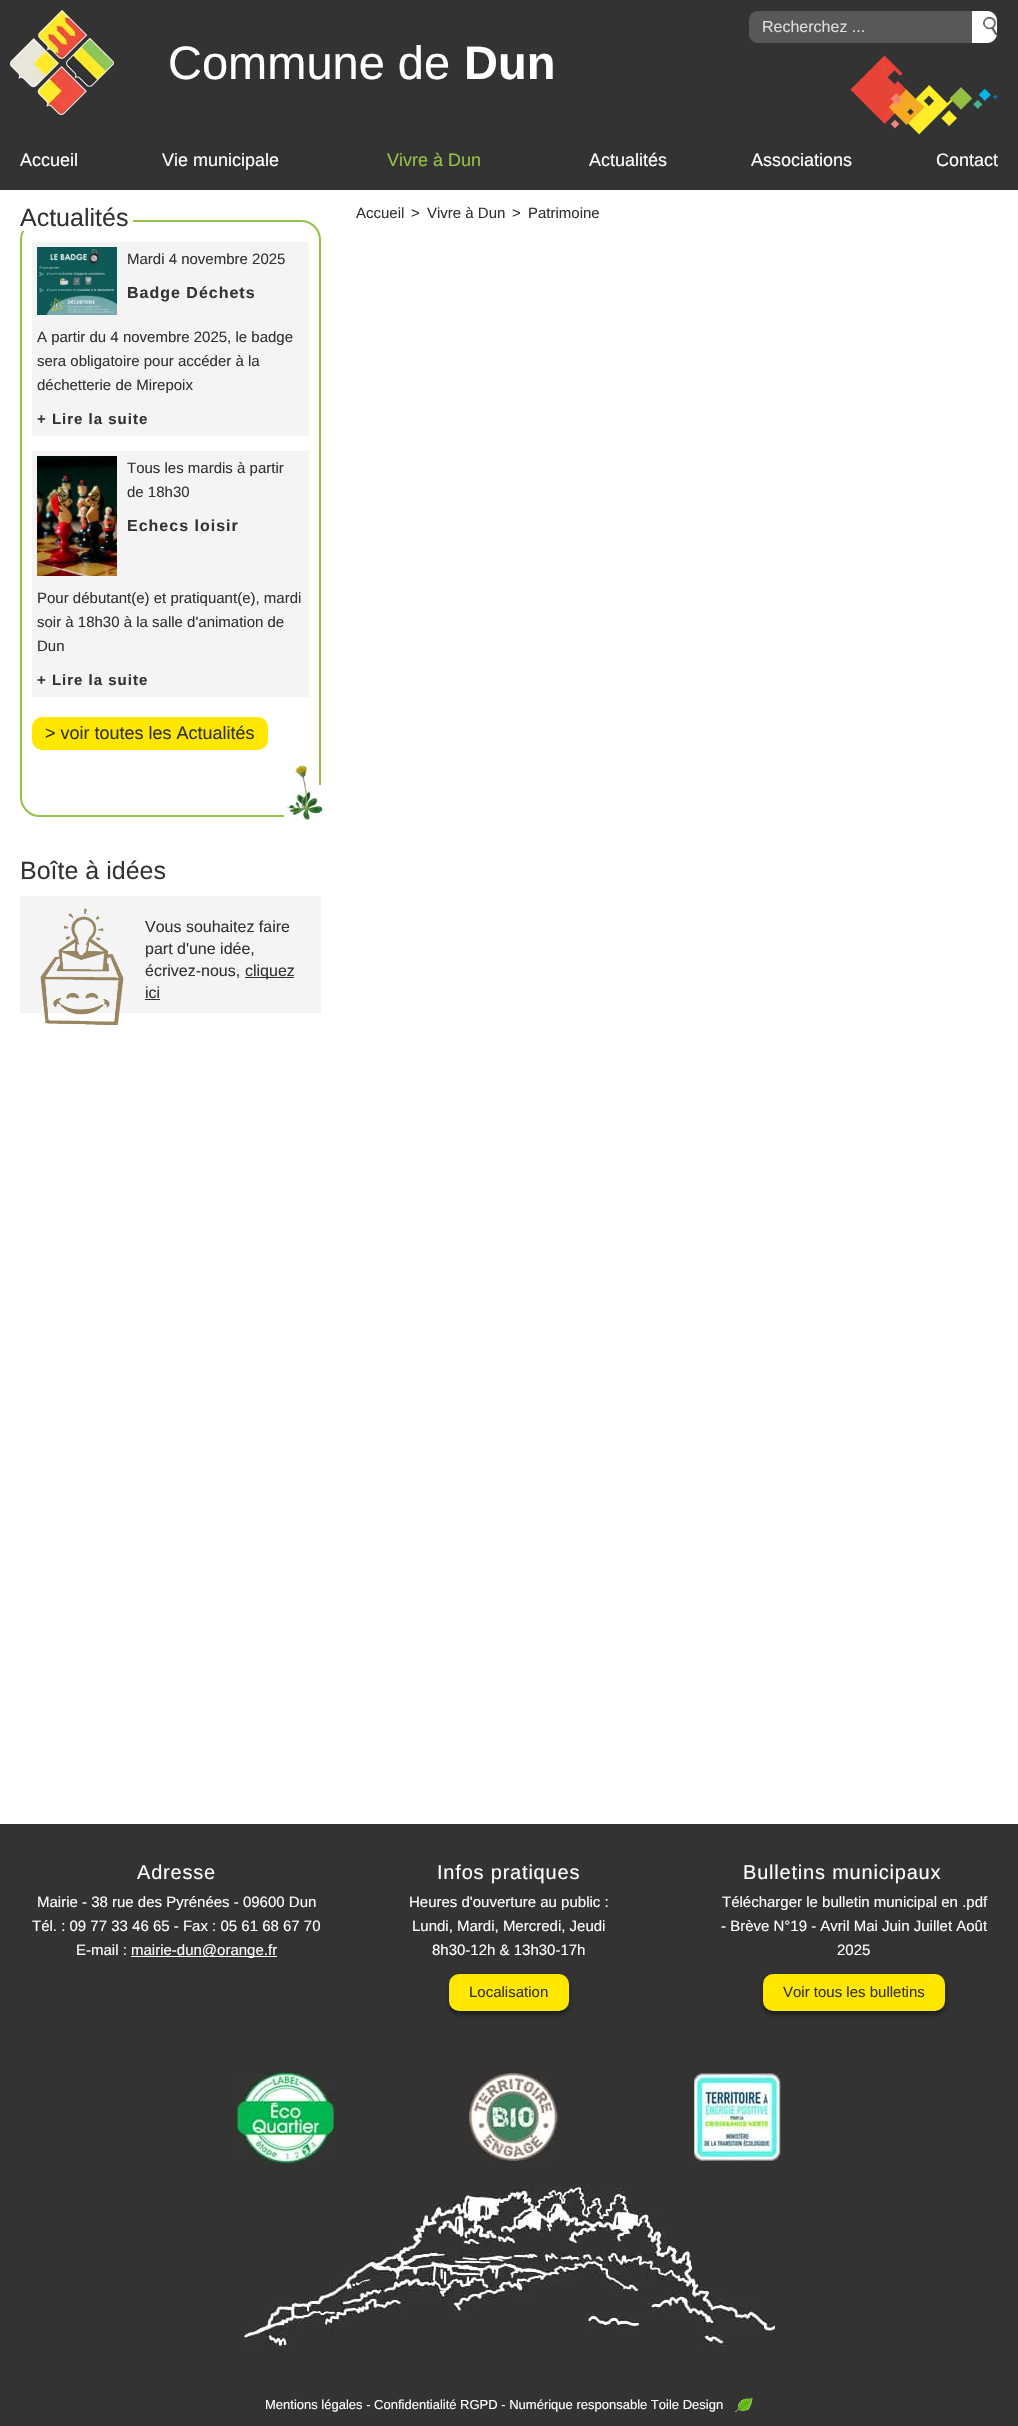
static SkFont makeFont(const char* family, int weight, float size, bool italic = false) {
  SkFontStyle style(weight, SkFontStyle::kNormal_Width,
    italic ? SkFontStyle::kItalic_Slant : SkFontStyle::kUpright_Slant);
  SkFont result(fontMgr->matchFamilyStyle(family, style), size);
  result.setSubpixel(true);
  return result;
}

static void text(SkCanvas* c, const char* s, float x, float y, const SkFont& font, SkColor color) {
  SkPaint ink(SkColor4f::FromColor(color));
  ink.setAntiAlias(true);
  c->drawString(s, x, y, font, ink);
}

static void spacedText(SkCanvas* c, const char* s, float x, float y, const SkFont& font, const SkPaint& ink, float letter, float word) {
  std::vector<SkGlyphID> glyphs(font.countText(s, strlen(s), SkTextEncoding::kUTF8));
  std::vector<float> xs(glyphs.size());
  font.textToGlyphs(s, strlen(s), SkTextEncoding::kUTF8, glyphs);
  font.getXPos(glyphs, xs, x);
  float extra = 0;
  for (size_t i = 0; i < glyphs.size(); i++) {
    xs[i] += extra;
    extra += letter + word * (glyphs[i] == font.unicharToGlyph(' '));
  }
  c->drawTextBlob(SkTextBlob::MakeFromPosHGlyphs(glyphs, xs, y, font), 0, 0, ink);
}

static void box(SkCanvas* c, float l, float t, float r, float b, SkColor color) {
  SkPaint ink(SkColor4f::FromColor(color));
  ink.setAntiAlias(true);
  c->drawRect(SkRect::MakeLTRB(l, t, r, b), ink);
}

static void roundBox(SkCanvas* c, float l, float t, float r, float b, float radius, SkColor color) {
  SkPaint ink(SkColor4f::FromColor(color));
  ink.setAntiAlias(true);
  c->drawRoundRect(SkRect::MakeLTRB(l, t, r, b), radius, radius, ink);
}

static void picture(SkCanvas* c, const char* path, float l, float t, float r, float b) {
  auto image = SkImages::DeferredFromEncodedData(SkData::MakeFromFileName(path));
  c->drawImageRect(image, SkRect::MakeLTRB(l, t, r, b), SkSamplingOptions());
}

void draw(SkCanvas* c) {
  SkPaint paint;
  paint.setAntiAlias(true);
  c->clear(0xffffffff);
  box(c, 0, 0, 1018, 190, 0xff333333);
  picture(c, "img_01.png", 850, 55, 998, 135);
  paint.setColor(0xff585858);
  c->drawRoundRect(SkRect::MakeLTRB(748.5f, 10.5f, 997.5f, 43.5f), 9.5f, 9.5f, paint);
  paint.setStyle(SkPaint::kStroke_Style);
  paint.setStrokeWidth(1);
  paint.setColor(0xff333333);
  c->drawRoundRect(SkRect::MakeLTRB(748.5f, 10.5f, 997.5f, 43.5f), 9.5f, 9.5f, paint);
  SkFont face1 = makeFont("Liberation Sans", 400, 16);
  text(c, "Recherchez ...", 762, 32, face1, 0xffdddddd);
  paint.setStyle(SkPaint::kFill_Style);
  paint.setColor(0xffffffff);
  c->drawPath(SkPathBuilder().moveTo(972, 11).lineTo(987, 11).cubicTo(992.5f, 11, 997, 15.5f, 997, 21).lineTo(997, 33).cubicTo(997, 38.5f, 992.5f, 43, 987, 43).lineTo(972, 43).close().detach(), paint);
  picture(c, "img_02.png", 983, 17, 997, 35);
  picture(c, "img_03.png", 10, 10, 114, 115);
  SkFont face2 = makeFont("Liberation Sans", 400, 47);
  text(c, "Commune de", 168, 79, face2, 0xffffffff);
  SkFont face3 = makeFont("Liberation Sans", 700, 47);
  text(c, "Dun", 464, 79, face3, 0xffffffff);
  SkFont face4 = makeFont("Liberation Sans", 400, 18);
  text(c, "Accueil", 20, 166, face4, 0xffffffff);
  text(c, "Vie municipale", 162, 166, face4, 0xffffffff);
  text(c, "Vivre à Dun", 387, 166, face4, 0xff96c147);
  text(c, "Actualités", 589, 166, face4, 0xffffffff);
  text(c, "Associations", 751, 166, face4, 0xffffffff);
  text(c, "Contact", 936, 166, face4, 0xffffffff);
  paint.setStyle(SkPaint::kStroke_Style);
  paint.setStrokeWidth(2);
  paint.setColor(0xff96c147);
  c->drawRoundRect(SkRect::MakeLTRB(21, 221, 320, 816), 19, 19, paint);
  box(c, 22, 220, 133, 231, 0xffffffff);
  SkFont face5 = makeFont("Liberation Sans", 400, 25);
  text(c, "Actualités", 20, 226, face5, 0xff333333);
  box(c, 32, 242, 309, 436, 0xfff4f4f4);
  picture(c, "img_04.png", 37, 247, 117, 315);
  SkFont face6 = makeFont("Liberation Sans", 400, 15);
  text(c, "Mardi 4 novembre 2025", 127, 264, face6, 0xff333333);
  SkFont face7 = makeFont("Liberation Sans", 700, 16);
  paint.setStyle(SkPaint::kFill_Style);
  paint.setColor(0xff333333);
  spacedText(c, "Badge Déchets", 127, 298, face7, paint, 1, 0);
  text(c, "A partir du 4 novembre 2025, le badge", 37, 342, face6, 0xff333333);
  text(c, "sera obligatoire pour accéder à la", 37, 366, face6, 0xff333333);
  text(c, "déchetterie de Mirepoix", 37, 390, face6, 0xff333333);
  SkFont face8 = makeFont("Liberation Sans", 700, 15);
  spacedText(c, "+ Lire la suite", 37, 424, face8, paint, 1, 0);
  box(c, 32, 451, 309, 697, 0xfff4f4f4);
  picture(c, "img_05.png", 37, 456, 117, 576);
  text(c, "Tous les mardis à partir", 127, 473, face6, 0xff333333);
  text(c, "de 18h30", 127, 497, face6, 0xff333333);
  spacedText(c, "Echecs loisir", 127, 531, face7, paint, 1, 0);
  text(c, "Pour débutant(e) et pratiquant(e), mardi", 37, 603, face6, 0xff333333);
  text(c, "soir à 18h30 à la salle d'animation de", 37, 627, face6, 0xff333333);
  text(c, "Dun", 37, 651, face6, 0xff333333);
  spacedText(c, "+ Lire la suite", 37, 685, face8, paint, 1, 0);
  roundBox(c, 32, 717, 268, 750, 10, 0xffffe700);
  text(c, "> voir toutes les Actualités", 45, 739, face4, 0xff333333);
  picture(c, "img_06.png", 284, 765, 323, 820);
  text(c, "Boîte à idées", 20, 879, face5, 0xff333333);
  box(c, 20, 896, 321, 1013, 0xfff4f4f4);
  picture(c, "img_07.png", 40, 908, 124, 1026);
  text(c, "Vous souhaitez faire", 145, 932, face1, 0xff333333);
  text(c, "part d'une idée,", 145, 954, face1, 0xff333333);
  text(c, "écrivez-nous,", 145, 976, face1, 0xff333333);
  box(c, 245, 977, 294, 978, 0xff333333);
  text(c, "cliquez", 245, 976, face1, 0xff333333);
  text(c, "ici", 145, 998, face1, 0xff333333);
  box(c, 145, 999, 160, 1000, 0xff333333);
  text(c, "Accueil", 356, 218, face6, 0xff333333);
  text(c, ">", 411, 218, face6, 0xff333333);
  text(c, "Vivre à Dun", 427, 218, face6, 0xff333333);
  text(c, ">", 512, 218, face6, 0xff333333);
  text(c, "Patrimoine", 528, 218, face6, 0xff333333);
  box(c, 0, 1824, 1018, 2426, 0xff333333);
  SkFont face9 = makeFont("Liberation Sans", 400, 20);
  paint.setColor(0xffffffff);
  spacedText(c, "Adresse", 137, 1879, face9, paint, 0.8f, 0);
  text(c, "Mairie - 38 rue des Pyrénées - 09600 Dun", 37, 1907, face6, 0xffffffff);
  text(c, "Tél. : 09 77 33 46 65 - Fax : 05 61 68 67 70", 32, 1931, face6, 0xffffffff);
  text(c, "E-mail :", 76, 1955, face6, 0xffffffff);
  box(c, 131, 1956, 277, 1957, 0xffffffff);
  text(c, "mairie-dun@orange.fr", 131, 1955, face6, 0xffffffff);
  spacedText(c, "Infos pratiques", 437, 1879, face9, paint, 0.8f, 0);
  text(c, "Heures d'ouverture au public :", 409, 1907, face6, 0xffffffff);
  text(c, "Lundi, Mardi, Mercredi, Jeudi", 412, 1931, face6, 0xffffffff);
  text(c, "8h30-12h & 13h30-17h", 432, 1955, face6, 0xffffffff);
  paint.setColor(0x80000000);
  paint.setMaskFilter(SkMaskFilter::MakeBlur(kNormal_SkBlurStyle, 2.5f));
  c->drawRoundRect(SkRect::MakeLTRB(449, 1977, 569, 2014), 10, 10, paint);
  paint.setMaskFilter(nullptr);
  roundBox(c, 449, 1974, 569, 2011, 10, 0xffffe700);
  text(c, "Localisation", 469, 1997, face6, 0xff333333);
  paint.setColor(0xffffffff);
  spacedText(c, "Bulletins municipaux", 743, 1879, face9, paint, 0.8f, 0);
  text(c, "Télécharger le bulletin municipal en .pdf", 722, 1907, face6, 0xffffffff);
  text(c, "- Brève N°19 - Avril Mai Juin Juillet Août", 721, 1931, face6, 0xffffffff);
  text(c, "2025", 837, 1955, face6, 0xffffffff);
  paint.setColor(0x80000000);
  paint.setMaskFilter(SkMaskFilter::MakeBlur(kNormal_SkBlurStyle, 2.5f));
  c->drawRoundRect(SkRect::MakeLTRB(763, 1977, 945, 2014), 10, 10, paint);
  paint.setMaskFilter(nullptr);
  roundBox(c, 763, 1974, 945, 2011, 10, 0xffffe700);
  text(c, "Voir tous les bulletins", 783, 1997, face6, 0xff333333);
  picture(c, "img_08.png", 237, 2073, 334, 2163);
  picture(c, "img_09.png", 469, 2073, 558, 2161);
  picture(c, "img_10.png", 694, 2073, 781, 2161);
  picture(c, "img_11.png", 244, 2187, 775, 2346);
  SkFont face10 = makeFont("Liberation Sans", 400, 13);
  text(c, "Mentions légales - Confidentialité RGPD - Numérique responsable Toile Design", 265, 2409, face10, 0xffffffff);
  picture(c, "img_12.png", 734, 2398, 753, 2413);
}
